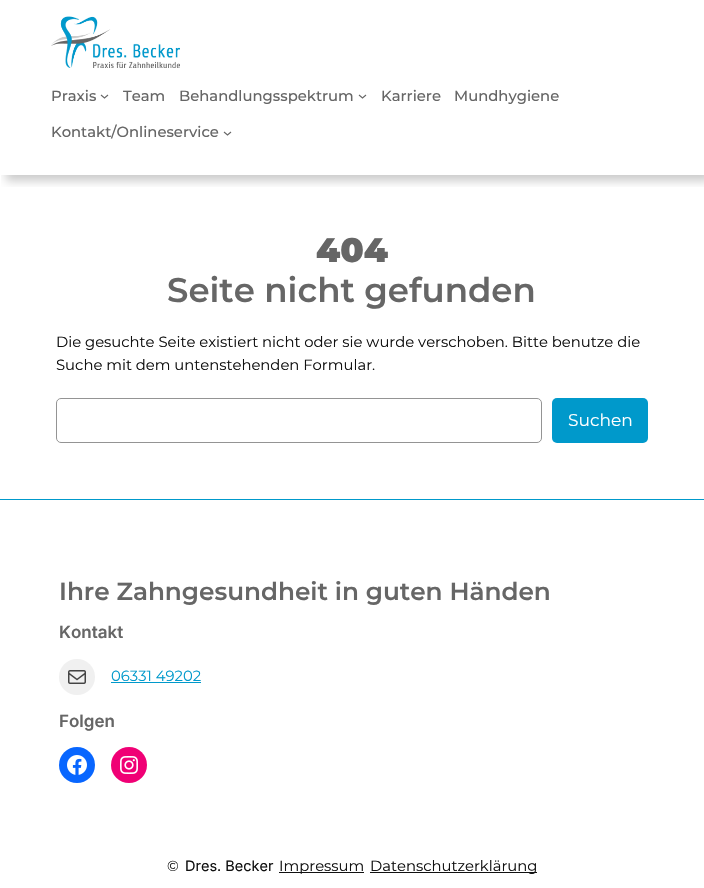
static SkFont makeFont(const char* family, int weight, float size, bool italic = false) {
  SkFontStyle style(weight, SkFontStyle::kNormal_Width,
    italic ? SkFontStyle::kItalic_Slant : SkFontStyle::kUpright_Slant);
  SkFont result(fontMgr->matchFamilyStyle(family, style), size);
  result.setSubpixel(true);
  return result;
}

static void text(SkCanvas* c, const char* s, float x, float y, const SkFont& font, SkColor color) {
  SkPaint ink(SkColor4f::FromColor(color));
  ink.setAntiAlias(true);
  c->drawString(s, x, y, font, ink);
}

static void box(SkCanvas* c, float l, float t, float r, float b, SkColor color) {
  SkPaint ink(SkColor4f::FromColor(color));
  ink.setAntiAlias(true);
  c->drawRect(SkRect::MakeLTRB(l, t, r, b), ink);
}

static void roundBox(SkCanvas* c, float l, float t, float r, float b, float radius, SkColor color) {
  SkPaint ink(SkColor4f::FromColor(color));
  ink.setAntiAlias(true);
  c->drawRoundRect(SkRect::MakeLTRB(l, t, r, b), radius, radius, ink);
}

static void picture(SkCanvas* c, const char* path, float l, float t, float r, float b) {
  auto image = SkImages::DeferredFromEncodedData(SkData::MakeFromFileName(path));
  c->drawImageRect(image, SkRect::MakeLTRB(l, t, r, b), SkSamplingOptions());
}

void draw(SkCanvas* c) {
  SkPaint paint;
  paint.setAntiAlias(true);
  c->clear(0xffffffff);
  c->save();
  c->clipRect(SkRect::MakeLTRB(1, 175, 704, 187));
  paint.setColor(0x33000000);
  paint.setMaskFilter(SkMaskFilter::MakeBlur(kNormal_SkBlurStyle, 4.5f));
  c->drawRect(SkRect::MakeLTRB(6, 6, 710, 181), paint);
  paint.setMaskFilter(nullptr);
  c->restore();
  picture(c, "img_01.png", 51, 16, 180, 68);
  SkFont face1 = makeFont("Montserrat", 500, 14.8f);
  text(c, "Praxis", 51, 101, face1, 0xff666666);
  paint.setStyle(SkPaint::kStroke_Style);
  paint.setStrokeWidth(1.1f);
  paint.setColor(0xff666666);
  c->drawPath(SkPathBuilder().moveTo(101, 95).lineTo(104.5f, 98).lineTo(108, 95).detach(), paint);
  text(c, "Team", 123, 101, face1, 0xff666666);
  text(c, "Behandlungsspektrum", 179, 101, face1, 0xff666666);
  c->drawPath(SkPathBuilder().moveTo(359, 95).lineTo(362.5f, 98).lineTo(366, 95).detach(), paint);
  text(c, "Karriere", 381, 101, face1, 0xff666666);
  text(c, "Mundhygiene", 454, 101, face1, 0xff666666);
  text(c, "Kontakt/Onlineservice", 51, 137, face1, 0xff666666);
  c->drawPath(SkPathBuilder().moveTo(224, 132).lineTo(227.5f, 135).lineTo(231, 132).detach(), paint);
  SkFont face2 = makeFont("Montserrat", 900, 34);
  text(c, "404", 316, 262, face2, 0xff666666);
  SkFont face3 = makeFont("Montserrat", 600, 34);
  text(c, "Seite nicht gefunden", 167, 302, face3, 0xff666666);
  SkFont face4 = makeFont("Montserrat", 400, 14.8f);
  text(c, "Die gesuchte Seite existiert nicht oder sie wurde verschoben. Bitte benutze die", 56, 347, face4, 0xff111111);
  text(c, "Suche mit dem untenstehenden Formular.", 56, 370, face4, 0xff111111);
  paint.setStrokeWidth(1);
  paint.setColor(0xff949494);
  c->drawRoundRect(SkRect::MakeLTRB(56.5f, 398.5f, 541.5f, 442.5f), 4.5f, 4.5f, paint);
  roundBox(c, 552, 398, 648, 443, 5, 0xff0099cb);
  SkFont face5 = makeFont("Montserrat", 400, 17);
  text(c, "Suchen", 568, 426, face5, 0xffffffff);
  box(c, 0, 499, 704, 500, 0xff0099cb);
  SkFont face6 = makeFont("Montserrat", 600, 24.75f);
  text(c, "Ihre Zahngesundheit in guten Händen", 59, 600, face6, 0xff666666);
  SkFont face7 = makeFont("Inter", 600, 17);
  text(c, "Kontakt", 59, 638, face7, 0xff666666);
  paint.setStyle(SkPaint::kFill_Style);
  paint.setColor(0xfff0f0f0);
  c->drawCircle(77, 677, 18, paint);
  picture(c, "img_02.png", 68, 670, 86, 684);
  text(c, "06331 49202", 111, 681, face4, 0xff0099cb);
  box(c, 111, 682, 201, 683, 0xff0099cb);
  text(c, "Folgen", 59, 727, face7, 0xff666666);
  paint.setColor(0xff0866ff);
  c->drawCircle(77, 765, 18, paint);
  picture(c, "img_03.png", 67, 755, 87, 775);
  paint.setColor(0xfff00075);
  c->drawCircle(129, 765, 18, paint);
  picture(c, "img_04.png", 120, 756, 138, 774);
  SkFont face8 = makeFont("Montserrat", 400, 14.5f);
  text(c, "©", 167, 871, face8, 0xff111111);
  SkFont face9 = makeFont("Inter", 400, 14.5f);
  text(c, "Dres. Becker", 185, 871, face9, 0xff111111);
  box(c, 279, 872, 364, 873, 0xff111111);
  text(c, "Impressum", 279, 871, face4, 0xff111111);
  box(c, 370, 872, 537, 873, 0xff111111);
  text(c, "Datenschutzerklärung", 370, 871, face4, 0xff111111);
}
